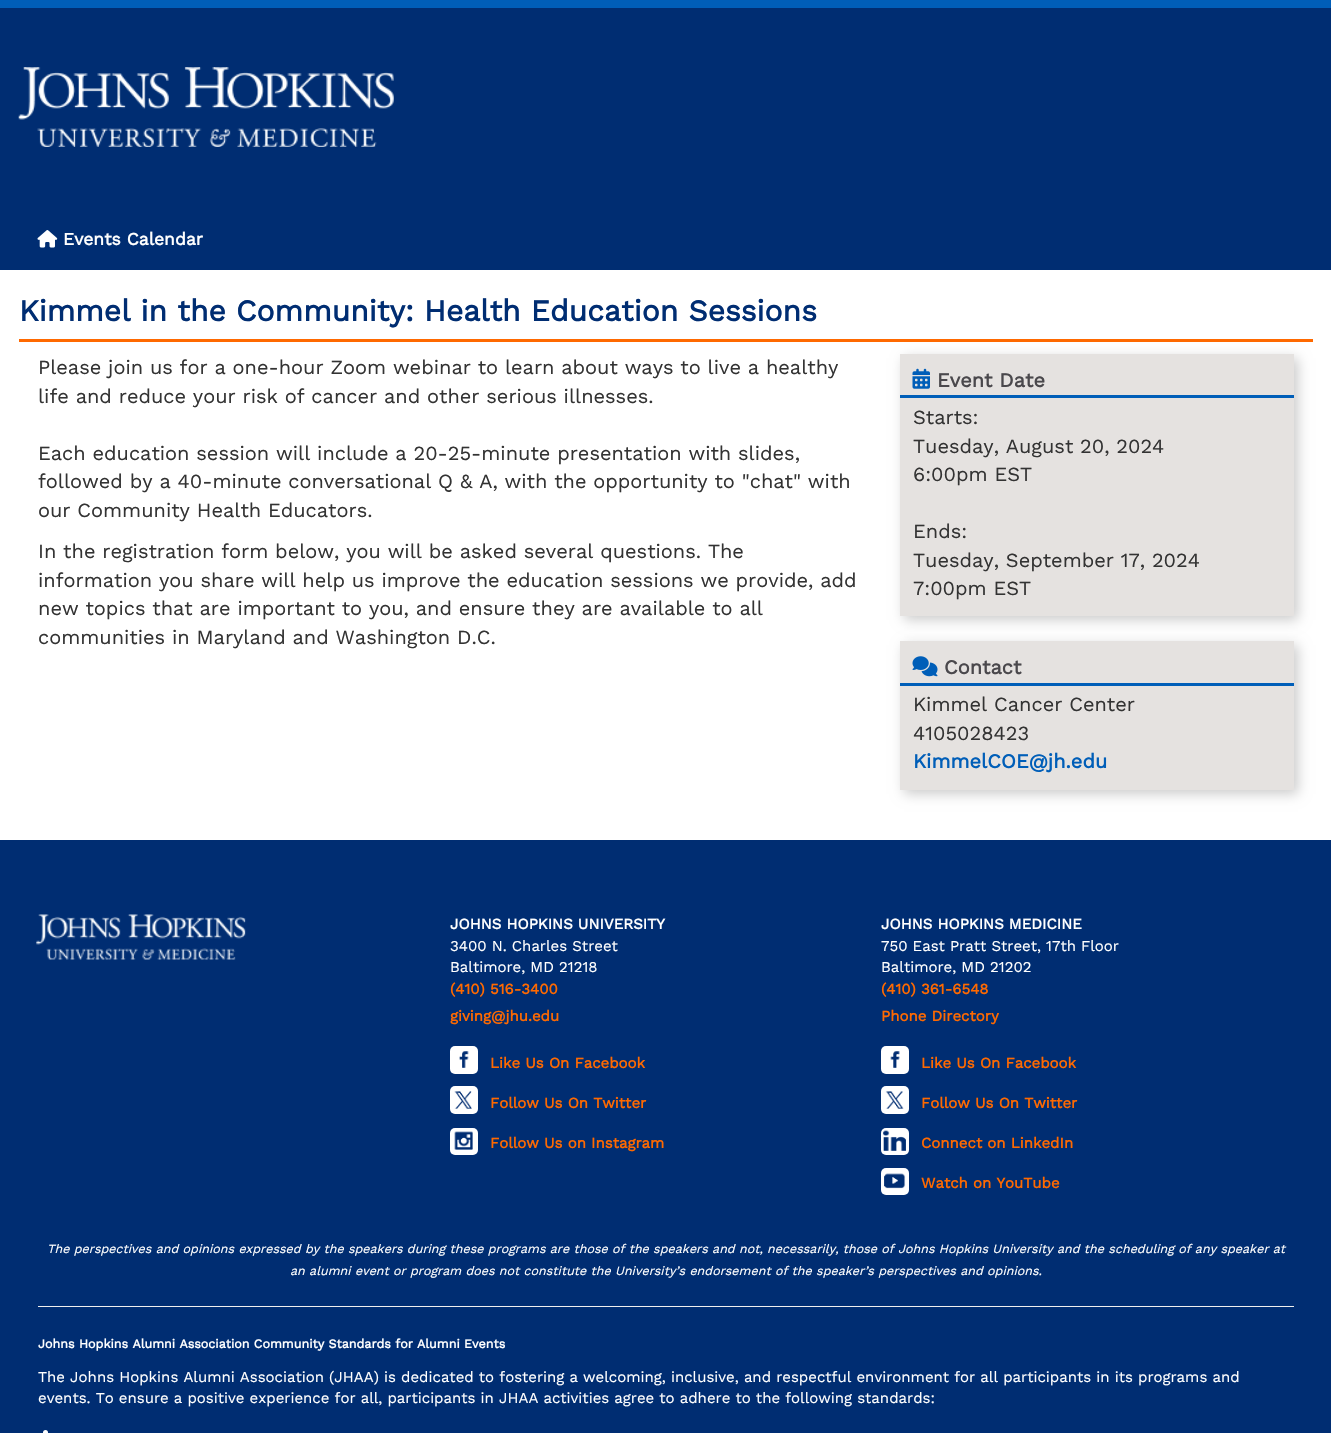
static SkFont makeFont(const char* family, int weight, float size, bool italic = false) {
  SkFontStyle style(weight, SkFontStyle::kNormal_Width,
    italic ? SkFontStyle::kItalic_Slant : SkFontStyle::kUpright_Slant);
  SkFont result(fontMgr->matchFamilyStyle(family, style), size);
  result.setSubpixel(true);
  return result;
}

static void text(SkCanvas* c, const char* s, float x, float y, const SkFont& font, SkColor color) {
  SkPaint ink(SkColor4f::FromColor(color));
  ink.setAntiAlias(true);
  c->drawString(s, x, y, font, ink);
}

static void box(SkCanvas* c, float l, float t, float r, float b, SkColor color) {
  SkPaint ink(SkColor4f::FromColor(color));
  ink.setAntiAlias(true);
  c->drawRect(SkRect::MakeLTRB(l, t, r, b), ink);
}

static void roundBox(SkCanvas* c, float l, float t, float r, float b, float radius, SkColor color) {
  SkPaint ink(SkColor4f::FromColor(color));
  ink.setAntiAlias(true);
  c->drawRoundRect(SkRect::MakeLTRB(l, t, r, b), radius, radius, ink);
}

static void picture(SkCanvas* c, const char* path, float l, float t, float r, float b) {
  auto image = SkImages::DeferredFromEncodedData(SkData::MakeFromFileName(path));
  c->drawImageRect(image, SkRect::MakeLTRB(l, t, r, b), SkSamplingOptions());
}

void draw(SkCanvas* c) {
  SkPaint paint;
  paint.setAntiAlias(true);
  c->clear(0xff002d72);
  box(c, 0, 0, 1331, 8, 0xff005eb8);
  picture(c, "img_01.png", 18, 67, 394, 147);
  picture(c, "img_02.png", 37, 230, 58, 248);
  SkFont face1 = makeFont("Work Sans", 700, 17.5f);
  text(c, "Events Calendar", 63, 245, face1, 0xffffffff);
  box(c, 0, 270, 1331, 840, 0xffffffff);
  box(c, 19, 339, 1313, 342, 0xffff6900);
  SkFont face2 = makeFont("Work Sans", 700, 30);
  text(c, "Kimmel in the Community: Health Education Sessions", 19, 321, face2, 0xff002d72);
  SkFont face3 = makeFont("Work Sans", 400, 20);
  text(c, "Please join us for a one-hour Zoom webinar to learn about ways to live a healthy", 38, 374, face3, 0xff333333);
  text(c, "life and reduce your risk of cancer and other serious illnesses.", 38, 403, face3, 0xff333333);
  text(c, "Each education session will include a 20-25-minute presentation with slides,", 38, 460, face3, 0xff333333);
  text(c, "followed by a 40-minute conversational Q & A, with the opportunity to \"chat\" with", 38, 488, face3, 0xff333333);
  text(c, "our Community Health Educators.", 38, 517, face3, 0xff333333);
  text(c, "In the registration form below, you will be asked several questions. The", 38, 558, face3, 0xff333333);
  text(c, "information you share will help us improve the education sessions we provide, add", 38, 587, face3, 0xff333333);
  text(c, "new topics that are important to you, and ensure they are available to all", 38, 615, face3, 0xff333333);
  text(c, "communities in Maryland and Washington D.C.", 38, 644, face3, 0xff333333);
  paint.setColor(0x33000000);
  paint.setMaskFilter(SkMaskFilter::MakeBlur(kNormal_SkBlurStyle, 6));
  c->drawRect(SkRect::MakeLTRB(904, 358, 1298, 620), paint);
  paint.setMaskFilter(nullptr);
  box(c, 900, 354, 1294, 616, 0xffe5e2e0);
  box(c, 900, 395, 1294, 398, 0xff005eb8);
  picture(c, "img_03.png", 912, 368, 930, 389);
  SkFont face4 = makeFont("Work Sans", 700, 20);
  text(c, "Event Date", 937, 387, face4, 0xff4a484c);
  text(c, "Starts:", 913, 424, face3, 0xff333333);
  text(c, "Tuesday, August 20, 2024", 913, 453, face3, 0xff333333);
  text(c, "6:00pm EST", 913, 481, face3, 0xff333333);
  text(c, "Ends:", 913, 538, face3, 0xff333333);
  text(c, "Tuesday, September 17, 2024", 913, 567, face3, 0xff333333);
  text(c, "7:00pm EST", 913, 595, face3, 0xff333333);
  paint.setMaskFilter(SkMaskFilter::MakeBlur(kNormal_SkBlurStyle, 6));
  c->drawRect(SkRect::MakeLTRB(904, 645, 1298, 794), paint);
  paint.setMaskFilter(nullptr);
  box(c, 900, 641, 1294, 790, 0xffe5e2e0);
  box(c, 900, 683, 1294, 686, 0xff005eb8);
  picture(c, "img_04.png", 912, 656, 938, 677);
  text(c, "Contact", 944, 674, face4, 0xff4a484c);
  text(c, "Kimmel Cancer Center", 913, 711, face3, 0xff333333);
  text(c, "4105028423", 913, 740, face3, 0xff333333);
  text(c, "KimmelCOE@jh.edu", 913, 768, face4, 0xff005eb8);
  picture(c, "img_05.png", 36, 914, 246, 960);
  SkFont face5 = makeFont("Work Sans", 700, 15);
  text(c, "JOHNS HOPKINS UNIVERSITY", 450, 929, face5, 0xffffffff);
  SkFont face6 = makeFont("Work Sans", 400, 15);
  text(c, "3400 N. Charles Street", 450, 951, face6, 0xffffffff);
  text(c, "Baltimore, MD 21218", 450, 972, face6, 0xffffffff);
  text(c, "(410) 516-3400", 450, 994, face5, 0xffff6900);
  text(c, "giving@jhu.edu", 450, 1021, face5, 0xffff6900);
  roundBox(c, 450, 1046, 478, 1074, 5, 0xffffffff);
  picture(c, "img_06.png", 459, 1051, 469, 1068);
  text(c, "Like Us On Facebook", 490, 1068, face5, 0xffff6900);
  roundBox(c, 450, 1086, 478, 1114, 5, 0xffffffff);
  picture(c, "img_07.png", 454, 1091, 472, 1109);
  text(c, "Follow Us On Twitter", 490, 1108, face5, 0xffff6900);
  roundBox(c, 450, 1128, 478, 1155, 5, 0xffffffff);
  picture(c, "img_08.png", 454, 1131, 473, 1150);
  text(c, "Follow Us on Instagram", 490, 1148, face5, 0xffff6900);
  text(c, "JOHNS HOPKINS MEDICINE", 881, 929, face5, 0xffffffff);
  text(c, "750 East Pratt Street, 17th Floor", 881, 951, face6, 0xffffffff);
  text(c, "Baltimore, MD 21202", 881, 972, face6, 0xffffffff);
  text(c, "(410) 361-6548", 881, 994, face5, 0xffff6900);
  text(c, "Phone Directory", 881, 1021, face5, 0xffff6900);
  roundBox(c, 881, 1046, 909, 1074, 5, 0xffffffff);
  picture(c, "img_09.png", 890, 1051, 900, 1068);
  text(c, "Like Us On Facebook", 921, 1068, face5, 0xffff6900);
  roundBox(c, 881, 1086, 909, 1114, 5, 0xffffffff);
  picture(c, "img_10.png", 885, 1091, 904, 1109);
  text(c, "Follow Us On Twitter", 921, 1108, face5, 0xffff6900);
  roundBox(c, 881, 1128, 909, 1155, 5, 0xffffffff);
  picture(c, "img_11.png", 883, 1130, 906, 1151);
  text(c, "Connect on LinkedIn", 921, 1148, face5, 0xffff6900);
  roundBox(c, 881, 1168, 909, 1195, 5, 0xffffffff);
  picture(c, "img_12.png", 884, 1173, 906, 1189);
  text(c, "Watch on YouTube", 921, 1188, face5, 0xffff6900);
  SkFont face7 = makeFont("Work Sans", 400, 12.5f, true);
  text(c, "The perspectives and opinions expressed by the speakers during these programs are those of the speakers and not, necessarily, those of Johns Hopkins University and the scheduling of any speaker at", 47, 1253, face7, 0xffffffff);
  text(c, "an alumni event or program does not constitute the University’s endorsement of the speaker’s perspectives and opinions.", 290, 1275, face7, 0xffffffff);
  box(c, 38, 1306, 1294, 1307, 0xffeeeeee);
  SkFont face8 = makeFont("Work Sans", 700, 12.5f);
  text(c, "Johns Hopkins Alumni Association Community Standards for Alumni Events", 38, 1348, face8, 0xffffffff);
  text(c, "The Johns Hopkins Alumni Association (JHAA) is dedicated to fostering a welcoming, inclusive, and respectful environment for all participants in its programs and", 38, 1382, face6, 0xffffffff);
  text(c, "events. To ensure a positive experience for all, participants in JHAA activities agree to adhere to the following standards:", 38, 1403, face6, 0xffffffff);
  paint.setColor(0xffffffff);
  c->drawCircle(45.5f, 1432.5f, 2.5f, paint);
}
